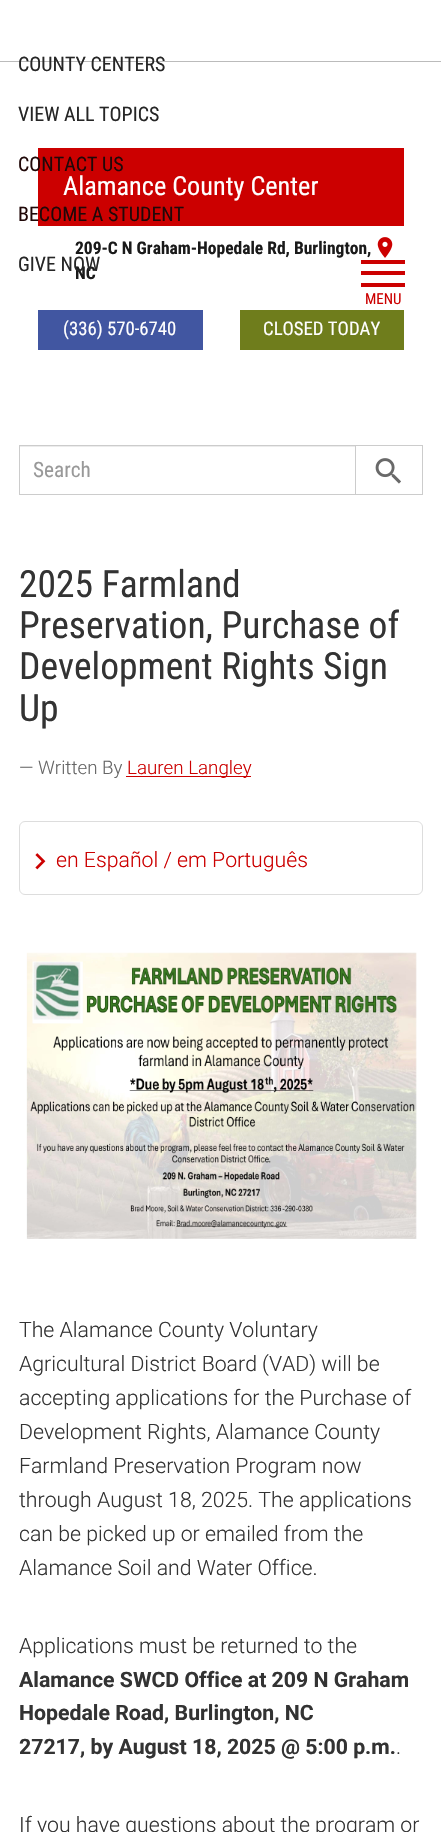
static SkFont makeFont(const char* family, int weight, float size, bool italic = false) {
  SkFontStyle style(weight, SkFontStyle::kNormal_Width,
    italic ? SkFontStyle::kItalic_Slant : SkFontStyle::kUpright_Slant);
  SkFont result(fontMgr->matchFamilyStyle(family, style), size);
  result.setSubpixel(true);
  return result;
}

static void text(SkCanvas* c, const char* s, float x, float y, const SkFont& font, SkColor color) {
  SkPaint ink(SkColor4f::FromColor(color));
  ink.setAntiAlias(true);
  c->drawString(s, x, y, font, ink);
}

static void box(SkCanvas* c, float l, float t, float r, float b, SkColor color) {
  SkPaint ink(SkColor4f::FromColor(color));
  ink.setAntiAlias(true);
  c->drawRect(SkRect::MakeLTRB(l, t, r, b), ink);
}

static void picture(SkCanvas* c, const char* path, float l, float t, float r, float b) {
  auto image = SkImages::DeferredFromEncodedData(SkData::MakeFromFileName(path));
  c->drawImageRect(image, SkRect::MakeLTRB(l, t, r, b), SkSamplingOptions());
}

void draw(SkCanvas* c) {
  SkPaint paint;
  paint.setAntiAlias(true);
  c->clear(0xffffffff);
  box(c, 0, 61, 441, 62, 0xffbbbbbb);
  SkFont face1 = makeFont("Roboto Condensed", 400, 20);
  text(c, "COUNTY CENTERS", 18, 71, face1, 0xff262626);
  text(c, "VIEW ALL TOPICS", 18, 121, face1, 0xff262626);
  box(c, 38, 148, 404, 226, 0xffcc0000);
  text(c, "CONTACT US", 18, 171, face1, 0xff200808);
  text(c, "BECOME A STUDENT", 18, 221, face1, 0xff200808);
  SkFont face2 = makeFont("Roboto Condensed", 700, 17.5f);
  text(c, "NC", 75, 279, face2, 0xff1a1a1a);
  text(c, "GIVE NOW", 18, 271, face1, 0xff262626);
  box(c, 361, 260, 405, 264, 0xffcc0000);
  box(c, 361, 271, 405, 275, 0xffcc0000);
  box(c, 361, 283, 405, 287, 0xffcc0000);
  SkFont face3 = makeFont("Roboto Condensed", 400, 15);
  text(c, "MENU", 365, 304, face3, 0xffcc0000);
  SkFont face4 = makeFont("Roboto Condensed", 400, 26.25f);
  text(c, "Alamance County Center", 63, 195, face4, 0xffffffff);
  text(c, "209-C N Graham-Hopedale Rd, Burlington,", 75, 254, face2, 0xff1a1a1a);
  picture(c, "img_01.png", 377, 237, 393, 258);
  box(c, 38, 310, 203, 350, 0xff4156a1);
  SkFont face5 = makeFont("Roboto Condensed", 400, 18.75f);
  text(c, "(336) 570-6740", 63, 335, face5, 0xffffffff);
  box(c, 240, 310, 404, 350, 0xff6f7d1c);
  text(c, "CLOSED TODAY", 263, 335, face5, 0xffffffff);
  box(c, 20, 446, 355, 447, 0xffececec);
  paint.setStyle(SkPaint::kStroke_Style);
  paint.setStrokeWidth(1);
  paint.setColor(0xffcccccc);
  c->drawRect(SkRect::MakeLTRB(19.5f, 445.5f, 355.5f, 494.5f), paint);
  SkFont face6 = makeFont("Roboto Condensed", 400, 21.25f);
  text(c, "Search", 33, 477, face6, 0xff999999);
  c->drawRect(SkRect::MakeLTRB(355.5f, 445.5f, 422.5f, 494.5f), paint);
  picture(c, "img_02.png", 375, 458, 401, 484);
  SkFont face7 = makeFont("Roboto Condensed", 400, 37.5f);
  text(c, "2025 Farmland", 19, 597, face7, 0xff333333);
  text(c, "Preservation, Purchase of", 19, 638, face7, 0xff333333);
  text(c, "Development Rights Sign", 19, 679, face7, 0xff333333);
  text(c, "Up", 19, 721, face7, 0xff333333);
  SkFont face8 = makeFont("Roboto", 300, 18.75f);
  text(c, "— Written By", 19, 774, face8, 0xff666666);
  box(c, 126, 776, 251, 777, 0xffcc0000);
  text(c, "Lauren Langley", 127, 774, face8, 0xffcc0000);
  paint.setColor(0xffdddddd);
  c->drawRoundRect(SkRect::MakeLTRB(19.5f, 821.5f, 422.5f, 894.5f), 5.5f, 5.5f, paint);
  picture(c, "img_03.png", 35, 853, 46, 870);
  SkFont face9 = makeFont("Roboto", 300, 21.25f);
  text(c, "en Español / em Português", 56, 867, face9, 0xffcc0000);
  picture(c, "img_04.png", 26, 952, 417, 1239);
  text(c, "The Alamance County Voluntary", 19, 1337, face9, 0xff333333);
  text(c, "Agricultural District Board (VAD) will be", 19, 1371, face9, 0xff333333);
  text(c, "accepting applications for the Purchase of", 19, 1405, face9, 0xff333333);
  text(c, "Development Rights, Alamance County", 19, 1439, face9, 0xff333333);
  text(c, "Farmland Preservation Program now", 19, 1473, face9, 0xff333333);
  text(c, "through August 18, 2025. The applications", 19, 1507, face9, 0xff333333);
  text(c, "can be picked up or emailed from the", 19, 1541, face9, 0xff333333);
  text(c, "Alamance Soil and Water Office.", 19, 1575, face9, 0xff333333);
  text(c, "Applications must be returned to the", 19, 1653, face9, 0xff333333);
  SkFont face10 = makeFont("Roboto", 700, 21.25f);
  text(c, "Alamance SWCD Office at 209 N Graham", 19, 1687, face10, 0xff333333);
  text(c, "Hopedale Road, Burlington, NC", 19, 1720, face10, 0xff333333);
  text(c, "27217, by August 18, 2025 @ 5:00 p.m.", 19, 1754, face10, 0xff333333);
  text(c, ".", 396, 1754, face9, 0xff333333);
  text(c, "If you have questions about the program or", 19, 1832, face9, 0xff333333);
}
